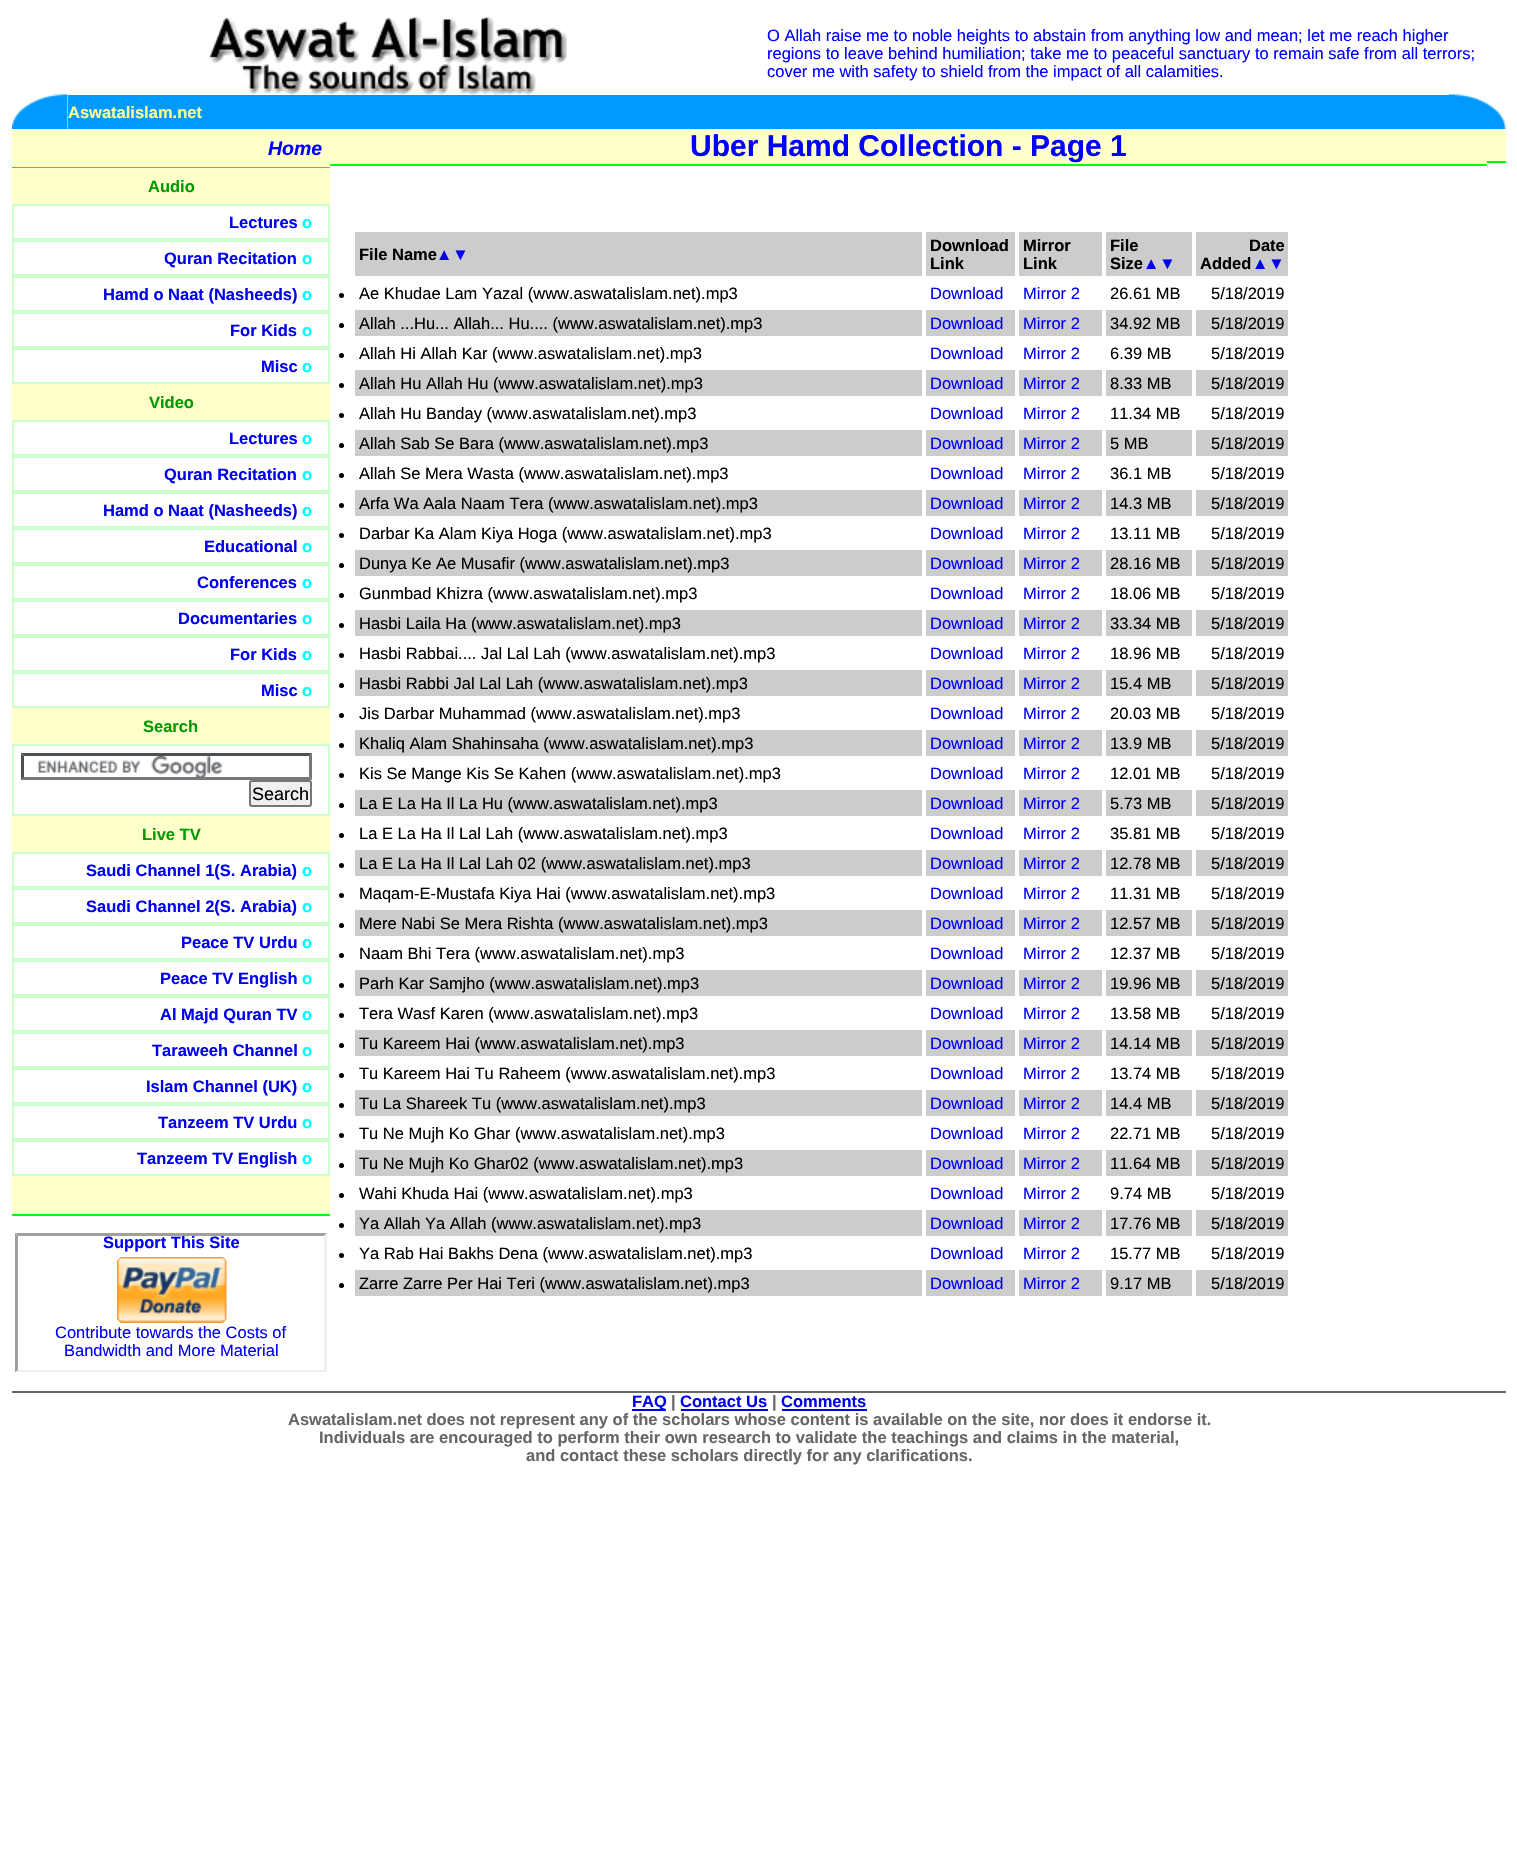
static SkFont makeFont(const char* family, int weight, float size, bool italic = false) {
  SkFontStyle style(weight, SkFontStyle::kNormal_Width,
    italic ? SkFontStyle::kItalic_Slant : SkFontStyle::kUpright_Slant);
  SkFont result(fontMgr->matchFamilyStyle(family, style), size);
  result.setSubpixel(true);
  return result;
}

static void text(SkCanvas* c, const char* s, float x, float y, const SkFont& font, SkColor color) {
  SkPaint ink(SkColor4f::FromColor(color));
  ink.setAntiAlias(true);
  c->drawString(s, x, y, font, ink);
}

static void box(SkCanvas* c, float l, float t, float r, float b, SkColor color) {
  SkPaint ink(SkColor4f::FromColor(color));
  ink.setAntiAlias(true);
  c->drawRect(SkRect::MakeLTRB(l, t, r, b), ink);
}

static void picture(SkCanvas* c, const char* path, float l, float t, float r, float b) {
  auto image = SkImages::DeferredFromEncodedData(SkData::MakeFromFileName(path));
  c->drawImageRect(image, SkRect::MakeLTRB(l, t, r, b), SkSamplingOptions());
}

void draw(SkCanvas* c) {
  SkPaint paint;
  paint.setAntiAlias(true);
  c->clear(0xffffffff);
  picture(c, "img_01.png", 209, 16, 567, 95);
  SkFont face1 = makeFont("Liberation Sans", 400, 16.5f);
  text(c, "O Allah raise me to noble heights to abstain from anything low and mean; let me reach higher", 767, 41, face1, 0xff0000ff);
  text(c, "regions to leave behind humiliation; take me to peaceful sanctuary to remain safe from all terrors;", 767, 59, face1, 0xff0000ff);
  text(c, "cover me with safety to shield from the impact of all calamities.", 767, 77, face1, 0xff0000ff);
  picture(c, "img_02.png", 12, 94, 68, 129);
  box(c, 68, 95, 1449, 129, 0xff0099ff);
  SkFont face2 = makeFont("Liberation Sans", 700, 16.5f);
  text(c, "Aswatalislam.net", 68, 118, face2, 0xffffff99);
  picture(c, "img_03.png", 1449, 94, 1506, 129);
  box(c, 12, 129, 330, 167, 0xffffffcc);
  box(c, 12, 167, 330, 168, 0xff00ff00);
  SkFont face3 = makeFont("Liberation Sans", 700, 19.5f, true);
  text(c, "Home", 268, 155, face3, 0xff0000ff);
  box(c, 12, 168, 330, 204, 0xffffffcc);
  text(c, "Audio", 148, 192, face2, 0xff009900);
  paint.setStyle(SkPaint::kStroke_Style);
  paint.setStrokeWidth(2);
  paint.setColor(0xffccffcc);
  c->drawRect(SkRect::MakeLTRB(13, 205, 329, 239), paint);
  text(c, "Lectures", 229, 228, face2, 0xff0000ee);
  text(c, "o", 302, 228, face2, 0xff00ffff);
  c->drawRect(SkRect::MakeLTRB(13, 241, 329, 275), paint);
  text(c, "Quran Recitation", 164, 264, face2, 0xff0000ee);
  text(c, "o", 302, 264, face2, 0xff00ffff);
  c->drawRect(SkRect::MakeLTRB(13, 277, 329, 311), paint);
  text(c, "Hamd o Naat (Nasheeds)", 103, 300, face2, 0xff0000ee);
  text(c, "o", 302, 300, face2, 0xff00ffff);
  c->drawRect(SkRect::MakeLTRB(13, 313, 329, 347), paint);
  text(c, "For Kids", 230, 336, face2, 0xff0000ee);
  text(c, "o", 302, 336, face2, 0xff00ffff);
  c->drawRect(SkRect::MakeLTRB(13, 349, 329, 383), paint);
  text(c, "Misc", 261, 372, face2, 0xff0000ee);
  text(c, "o", 302, 372, face2, 0xff00ffff);
  box(c, 12, 384, 330, 420, 0xffffffcc);
  text(c, "Video", 149, 408, face2, 0xff009900);
  c->drawRect(SkRect::MakeLTRB(13, 421, 329, 455), paint);
  text(c, "Lectures", 229, 444, face2, 0xff0000ee);
  text(c, "o", 302, 444, face2, 0xff00ffff);
  c->drawRect(SkRect::MakeLTRB(13, 457, 329, 491), paint);
  text(c, "Quran Recitation", 164, 480, face2, 0xff0000ee);
  text(c, "o", 302, 480, face2, 0xff00ffff);
  c->drawRect(SkRect::MakeLTRB(13, 493, 329, 527), paint);
  text(c, "Hamd o Naat (Nasheeds)", 103, 516, face2, 0xff0000ee);
  text(c, "o", 302, 516, face2, 0xff00ffff);
  c->drawRect(SkRect::MakeLTRB(13, 529, 329, 563), paint);
  text(c, "Educational", 204, 552, face2, 0xff0000ee);
  text(c, "o", 302, 552, face2, 0xff00ffff);
  c->drawRect(SkRect::MakeLTRB(13, 565, 329, 599), paint);
  text(c, "Conferences", 197, 588, face2, 0xff0000ee);
  text(c, "o", 302, 588, face2, 0xff00ffff);
  c->drawRect(SkRect::MakeLTRB(13, 601, 329, 635), paint);
  text(c, "Documentaries", 178, 624, face2, 0xff0000ee);
  text(c, "o", 302, 624, face2, 0xff00ffff);
  c->drawRect(SkRect::MakeLTRB(13, 637, 329, 671), paint);
  text(c, "For Kids", 230, 660, face2, 0xff0000ee);
  text(c, "o", 302, 660, face2, 0xff00ffff);
  c->drawRect(SkRect::MakeLTRB(13, 673, 329, 707), paint);
  text(c, "Misc", 261, 696, face2, 0xff0000ee);
  text(c, "o", 302, 696, face2, 0xff00ffff);
  box(c, 12, 708, 330, 744, 0xffffffcc);
  text(c, "Search", 143, 732, face2, 0xff009900);
  c->drawRect(SkRect::MakeLTRB(13, 745, 329, 815), paint);
  picture(c, "img_04.png", 37, 756, 222, 777);
  paint.setStyle(SkPaint::kFill_Style);
  paint.setColor(0xff4f4f4f);
  c->drawPath(SkPathBuilder().moveTo(21, 753).lineTo(312, 753).lineTo(309, 756).lineTo(24, 756).close().detach(), paint);
  paint.setColor(0xff767676);
  c->drawPath(SkPathBuilder().moveTo(312, 753).lineTo(312, 780).lineTo(309, 777).lineTo(309, 756).close().detach(), paint);
  c->drawPath(SkPathBuilder().moveTo(312, 780).lineTo(21, 780).lineTo(24, 777).lineTo(309, 777).close().detach(), paint);
  paint.setColor(0xff4f4f4f);
  c->drawPath(SkPathBuilder().moveTo(21, 780).lineTo(21, 753).lineTo(24, 756).lineTo(24, 777).close().detach(), paint);
  paint.setColor(0xffefefef);
  c->drawRoundRect(SkRect::MakeLTRB(250, 781, 311, 806), 2, 2, paint);
  paint.setStyle(SkPaint::kStroke_Style);
  paint.setColor(0xff767676);
  c->drawRoundRect(SkRect::MakeLTRB(250, 781, 311, 806), 2, 2, paint);
  SkFont face4 = makeFont("Liberation Sans", 400, 18);
  text(c, "Search", 252, 800, face4, 0xff000000);
  box(c, 12, 816, 330, 852, 0xffffffcc);
  text(c, "Live TV", 142, 840, face2, 0xff009900);
  paint.setColor(0xffccffcc);
  c->drawRect(SkRect::MakeLTRB(13, 853, 329, 887), paint);
  text(c, "Saudi Channel 1(S. Arabia)", 86, 876, face2, 0xff0000ee);
  text(c, "o", 302, 876, face2, 0xff00ffff);
  c->drawRect(SkRect::MakeLTRB(13, 889, 329, 923), paint);
  text(c, "Saudi Channel 2(S. Arabia)", 86, 912, face2, 0xff0000ee);
  text(c, "o", 302, 912, face2, 0xff00ffff);
  c->drawRect(SkRect::MakeLTRB(13, 925, 329, 959), paint);
  text(c, "Peace TV Urdu", 181, 948, face2, 0xff0000ee);
  text(c, "o", 302, 948, face2, 0xff00ffff);
  c->drawRect(SkRect::MakeLTRB(13, 961, 329, 995), paint);
  text(c, "Peace TV English", 160, 984, face2, 0xff0000ee);
  text(c, "o", 302, 984, face2, 0xff00ffff);
  c->drawRect(SkRect::MakeLTRB(13, 997, 329, 1031), paint);
  text(c, "Al Majd Quran TV", 160, 1020, face2, 0xff0000ee);
  text(c, "o", 302, 1020, face2, 0xff00ffff);
  c->drawRect(SkRect::MakeLTRB(13, 1033, 329, 1067), paint);
  text(c, "Taraweeh Channel", 152, 1056, face2, 0xff0000ee);
  text(c, "o", 302, 1056, face2, 0xff00ffff);
  c->drawRect(SkRect::MakeLTRB(13, 1069, 329, 1103), paint);
  text(c, "Islam Channel (UK)", 146, 1092, face2, 0xff0000ee);
  text(c, "o", 302, 1092, face2, 0xff00ffff);
  c->drawRect(SkRect::MakeLTRB(13, 1105, 329, 1139), paint);
  text(c, "Tanzeem TV Urdu", 158, 1128, face2, 0xff0000ee);
  text(c, "o", 302, 1128, face2, 0xff00ffff);
  c->drawRect(SkRect::MakeLTRB(13, 1141, 329, 1175), paint);
  text(c, "Tanzeem TV English", 137, 1164, face2, 0xff0000ee);
  text(c, "o", 302, 1164, face2, 0xff00ffff);
  box(c, 12, 1176, 330, 1214, 0xffffffcc);
  box(c, 12, 1214, 330, 1216, 0xff00ff00);
  paint.setStyle(SkPaint::kFill_Style);
  paint.setColor(0xff9f9f9f);
  c->drawPath(SkPathBuilder().moveTo(15, 1233).lineTo(327, 1233).lineTo(324, 1236).lineTo(18, 1236).close().detach(), paint);
  paint.setColor(0xffefefef);
  c->drawPath(SkPathBuilder().moveTo(327, 1233).lineTo(327, 1372).lineTo(324, 1370).lineTo(324, 1236).close().detach(), paint);
  c->drawPath(SkPathBuilder().moveTo(327, 1372).lineTo(15, 1372).lineTo(18, 1370).lineTo(324, 1370).close().detach(), paint);
  paint.setColor(0xff9f9f9f);
  c->drawPath(SkPathBuilder().moveTo(15, 1372).lineTo(15, 1233).lineTo(18, 1236).lineTo(18, 1370).close().detach(), paint);
  text(c, "Support This Site", 103, 1248, face2, 0xff0000ff);
  picture(c, "img_05.png", 117, 1257, 227, 1323);
  text(c, "Contribute towards the Costs of", 55, 1338, face1, 0xff0000ff);
  text(c, "Bandwidth and More Material", 64, 1356, face1, 0xff0000ff);
  box(c, 330, 129, 1487, 164, 0xffffffcc);
  box(c, 330, 164, 1487, 166, 0xff00ff00);
  SkFont face5 = makeFont("Liberation Sans", 700, 30);
  text(c, "Uber Hamd Collection - Page 1", 690, 156, face5, 0xff0000ff);
  box(c, 355, 232, 1288, 276, 0xffcccccc);
  paint.setStyle(SkPaint::kStroke_Style);
  paint.setColor(0xffffffff);
  c->drawRect(SkRect::MakeLTRB(354, 231, 923, 277), paint);
  text(c, "File Name", 359, 260, face2, 0xff000000);
  text(c, "▲▼", 436, 260, face1, 0xff0000ee);
  c->drawRect(SkRect::MakeLTRB(925, 231, 1016, 277), paint);
  text(c, "Download", 930, 251, face2, 0xff000000);
  text(c, "Link", 930, 269, face2, 0xff000000);
  c->drawRect(SkRect::MakeLTRB(1018, 231, 1103, 277), paint);
  text(c, "Mirror", 1023, 251, face2, 0xff000000);
  text(c, "Link", 1023, 269, face2, 0xff000000);
  c->drawRect(SkRect::MakeLTRB(1105, 231, 1193, 277), paint);
  text(c, "File", 1110, 251, face2, 0xff000000);
  text(c, "Size", 1110, 269, face2, 0xff000000);
  text(c, "▲▼", 1143, 269, face1, 0xff0000ee);
  c->drawRect(SkRect::MakeLTRB(1195, 231, 1289, 277), paint);
  text(c, "Date", 1249, 251, face2, 0xff000000);
  text(c, "Added", 1200, 269, face2, 0xff000000);
  text(c, "▲▼", 1252, 269, face1, 0xff0000ee);
  paint.setStyle(SkPaint::kFill_Style);
  paint.setColor(0xff000000);
  c->drawCircle(341.5f, 295.5f, 2.5f, paint);
  text(c, "Ae Khudae Lam Yazal (www.aswatalislam.net).mp3", 359, 299, face1, 0xff000000);
  text(c, "Download", 930, 299, face1, 0xff0000ee);
  text(c, "Mirror 2", 1023, 299, face1, 0xff0000ee);
  text(c, "26.61 MB", 1110, 299, face1, 0xff000000);
  text(c, "5/18/2019", 1211, 299, face1, 0xff000000);
  box(c, 355, 310, 1288, 336, 0xffcccccc);
  paint.setStyle(SkPaint::kStroke_Style);
  paint.setColor(0xffffffff);
  c->drawRect(SkRect::MakeLTRB(354, 309, 923, 337), paint);
  paint.setStyle(SkPaint::kFill_Style);
  paint.setColor(0xff000000);
  c->drawCircle(341.5f, 325.5f, 2.5f, paint);
  text(c, "Allah ...Hu... Allah... Hu.... (www.aswatalislam.net).mp3", 359, 329, face1, 0xff000000);
  paint.setStyle(SkPaint::kStroke_Style);
  paint.setColor(0xffffffff);
  c->drawRect(SkRect::MakeLTRB(925, 309, 1016, 337), paint);
  text(c, "Download", 930, 329, face1, 0xff0000ee);
  c->drawRect(SkRect::MakeLTRB(1018, 309, 1103, 337), paint);
  text(c, "Mirror 2", 1023, 329, face1, 0xff0000ee);
  c->drawRect(SkRect::MakeLTRB(1105, 309, 1193, 337), paint);
  text(c, "34.92 MB", 1110, 329, face1, 0xff000000);
  c->drawRect(SkRect::MakeLTRB(1195, 309, 1289, 337), paint);
  text(c, "5/18/2019", 1211, 329, face1, 0xff000000);
  paint.setStyle(SkPaint::kFill_Style);
  paint.setColor(0xff000000);
  c->drawCircle(341.5f, 355.5f, 2.5f, paint);
  text(c, "Allah Hi Allah Kar (www.aswatalislam.net).mp3", 359, 359, face1, 0xff000000);
  text(c, "Download", 930, 359, face1, 0xff0000ee);
  text(c, "Mirror 2", 1023, 359, face1, 0xff0000ee);
  text(c, "6.39 MB", 1110, 359, face1, 0xff000000);
  text(c, "5/18/2019", 1211, 359, face1, 0xff000000);
  box(c, 355, 370, 1288, 396, 0xffcccccc);
  paint.setStyle(SkPaint::kStroke_Style);
  paint.setColor(0xffffffff);
  c->drawRect(SkRect::MakeLTRB(354, 369, 923, 397), paint);
  paint.setStyle(SkPaint::kFill_Style);
  paint.setColor(0xff000000);
  c->drawCircle(341.5f, 385.5f, 2.5f, paint);
  text(c, "Allah Hu Allah Hu (www.aswatalislam.net).mp3", 359, 389, face1, 0xff000000);
  paint.setStyle(SkPaint::kStroke_Style);
  paint.setColor(0xffffffff);
  c->drawRect(SkRect::MakeLTRB(925, 369, 1016, 397), paint);
  text(c, "Download", 930, 389, face1, 0xff0000ee);
  c->drawRect(SkRect::MakeLTRB(1018, 369, 1103, 397), paint);
  text(c, "Mirror 2", 1023, 389, face1, 0xff0000ee);
  c->drawRect(SkRect::MakeLTRB(1105, 369, 1193, 397), paint);
  text(c, "8.33 MB", 1110, 389, face1, 0xff000000);
  c->drawRect(SkRect::MakeLTRB(1195, 369, 1289, 397), paint);
  text(c, "5/18/2019", 1211, 389, face1, 0xff000000);
  paint.setStyle(SkPaint::kFill_Style);
  paint.setColor(0xff000000);
  c->drawCircle(341.5f, 415.5f, 2.5f, paint);
  text(c, "Allah Hu Banday (www.aswatalislam.net).mp3", 359, 419, face1, 0xff000000);
  text(c, "Download", 930, 419, face1, 0xff0000ee);
  text(c, "Mirror 2", 1023, 419, face1, 0xff0000ee);
  text(c, "11.34 MB", 1110, 419, face1, 0xff000000);
  text(c, "5/18/2019", 1211, 419, face1, 0xff000000);
  box(c, 355, 430, 1288, 456, 0xffcccccc);
  paint.setStyle(SkPaint::kStroke_Style);
  paint.setColor(0xffffffff);
  c->drawRect(SkRect::MakeLTRB(354, 429, 923, 457), paint);
  paint.setStyle(SkPaint::kFill_Style);
  paint.setColor(0xff000000);
  c->drawCircle(341.5f, 445.5f, 2.5f, paint);
  text(c, "Allah Sab Se Bara (www.aswatalislam.net).mp3", 359, 449, face1, 0xff000000);
  paint.setStyle(SkPaint::kStroke_Style);
  paint.setColor(0xffffffff);
  c->drawRect(SkRect::MakeLTRB(925, 429, 1016, 457), paint);
  text(c, "Download", 930, 449, face1, 0xff0000ee);
  c->drawRect(SkRect::MakeLTRB(1018, 429, 1103, 457), paint);
  text(c, "Mirror 2", 1023, 449, face1, 0xff0000ee);
  c->drawRect(SkRect::MakeLTRB(1105, 429, 1193, 457), paint);
  text(c, "5 MB", 1110, 449, face1, 0xff000000);
  c->drawRect(SkRect::MakeLTRB(1195, 429, 1289, 457), paint);
  text(c, "5/18/2019", 1211, 449, face1, 0xff000000);
  paint.setStyle(SkPaint::kFill_Style);
  paint.setColor(0xff000000);
  c->drawCircle(341.5f, 475.5f, 2.5f, paint);
  text(c, "Allah Se Mera Wasta (www.aswatalislam.net).mp3", 359, 479, face1, 0xff000000);
  text(c, "Download", 930, 479, face1, 0xff0000ee);
  text(c, "Mirror 2", 1023, 479, face1, 0xff0000ee);
  text(c, "36.1 MB", 1110, 479, face1, 0xff000000);
  text(c, "5/18/2019", 1211, 479, face1, 0xff000000);
  box(c, 355, 490, 1288, 516, 0xffcccccc);
  paint.setStyle(SkPaint::kStroke_Style);
  paint.setColor(0xffffffff);
  c->drawRect(SkRect::MakeLTRB(354, 489, 923, 517), paint);
  paint.setStyle(SkPaint::kFill_Style);
  paint.setColor(0xff000000);
  c->drawCircle(341.5f, 505.5f, 2.5f, paint);
  text(c, "Arfa Wa Aala Naam Tera (www.aswatalislam.net).mp3", 359, 509, face1, 0xff000000);
  paint.setStyle(SkPaint::kStroke_Style);
  paint.setColor(0xffffffff);
  c->drawRect(SkRect::MakeLTRB(925, 489, 1016, 517), paint);
  text(c, "Download", 930, 509, face1, 0xff0000ee);
  c->drawRect(SkRect::MakeLTRB(1018, 489, 1103, 517), paint);
  text(c, "Mirror 2", 1023, 509, face1, 0xff0000ee);
  c->drawRect(SkRect::MakeLTRB(1105, 489, 1193, 517), paint);
  text(c, "14.3 MB", 1110, 509, face1, 0xff000000);
  c->drawRect(SkRect::MakeLTRB(1195, 489, 1289, 517), paint);
  text(c, "5/18/2019", 1211, 509, face1, 0xff000000);
  paint.setStyle(SkPaint::kFill_Style);
  paint.setColor(0xff000000);
  c->drawCircle(341.5f, 535.5f, 2.5f, paint);
  text(c, "Darbar Ka Alam Kiya Hoga (www.aswatalislam.net).mp3", 359, 539, face1, 0xff000000);
  text(c, "Download", 930, 539, face1, 0xff0000ee);
  text(c, "Mirror 2", 1023, 539, face1, 0xff0000ee);
  text(c, "13.11 MB", 1110, 539, face1, 0xff000000);
  text(c, "5/18/2019", 1211, 539, face1, 0xff000000);
  box(c, 355, 550, 1288, 576, 0xffcccccc);
  paint.setStyle(SkPaint::kStroke_Style);
  paint.setColor(0xffffffff);
  c->drawRect(SkRect::MakeLTRB(354, 549, 923, 577), paint);
  paint.setStyle(SkPaint::kFill_Style);
  paint.setColor(0xff000000);
  c->drawCircle(341.5f, 565.5f, 2.5f, paint);
  text(c, "Dunya Ke Ae Musafir (www.aswatalislam.net).mp3", 359, 569, face1, 0xff000000);
  paint.setStyle(SkPaint::kStroke_Style);
  paint.setColor(0xffffffff);
  c->drawRect(SkRect::MakeLTRB(925, 549, 1016, 577), paint);
  text(c, "Download", 930, 569, face1, 0xff0000ee);
  c->drawRect(SkRect::MakeLTRB(1018, 549, 1103, 577), paint);
  text(c, "Mirror 2", 1023, 569, face1, 0xff0000ee);
  c->drawRect(SkRect::MakeLTRB(1105, 549, 1193, 577), paint);
  text(c, "28.16 MB", 1110, 569, face1, 0xff000000);
  c->drawRect(SkRect::MakeLTRB(1195, 549, 1289, 577), paint);
  text(c, "5/18/2019", 1211, 569, face1, 0xff000000);
  paint.setStyle(SkPaint::kFill_Style);
  paint.setColor(0xff000000);
  c->drawCircle(341.5f, 595.5f, 2.5f, paint);
  text(c, "Gunmbad Khizra (www.aswatalislam.net).mp3", 359, 599, face1, 0xff000000);
  text(c, "Download", 930, 599, face1, 0xff0000ee);
  text(c, "Mirror 2", 1023, 599, face1, 0xff0000ee);
  text(c, "18.06 MB", 1110, 599, face1, 0xff000000);
  text(c, "5/18/2019", 1211, 599, face1, 0xff000000);
  box(c, 355, 610, 1288, 636, 0xffcccccc);
  paint.setStyle(SkPaint::kStroke_Style);
  paint.setColor(0xffffffff);
  c->drawRect(SkRect::MakeLTRB(354, 609, 923, 637), paint);
  paint.setStyle(SkPaint::kFill_Style);
  paint.setColor(0xff000000);
  c->drawCircle(341.5f, 625.5f, 2.5f, paint);
  text(c, "Hasbi Laila Ha (www.aswatalislam.net).mp3", 359, 629, face1, 0xff000000);
  paint.setStyle(SkPaint::kStroke_Style);
  paint.setColor(0xffffffff);
  c->drawRect(SkRect::MakeLTRB(925, 609, 1016, 637), paint);
  text(c, "Download", 930, 629, face1, 0xff0000ee);
  c->drawRect(SkRect::MakeLTRB(1018, 609, 1103, 637), paint);
  text(c, "Mirror 2", 1023, 629, face1, 0xff0000ee);
  c->drawRect(SkRect::MakeLTRB(1105, 609, 1193, 637), paint);
  text(c, "33.34 MB", 1110, 629, face1, 0xff000000);
  c->drawRect(SkRect::MakeLTRB(1195, 609, 1289, 637), paint);
  text(c, "5/18/2019", 1211, 629, face1, 0xff000000);
  paint.setStyle(SkPaint::kFill_Style);
  paint.setColor(0xff000000);
  c->drawCircle(341.5f, 655.5f, 2.5f, paint);
  text(c, "Hasbi Rabbai.... Jal Lal Lah (www.aswatalislam.net).mp3", 359, 659, face1, 0xff000000);
  text(c, "Download", 930, 659, face1, 0xff0000ee);
  text(c, "Mirror 2", 1023, 659, face1, 0xff0000ee);
  text(c, "18.96 MB", 1110, 659, face1, 0xff000000);
  text(c, "5/18/2019", 1211, 659, face1, 0xff000000);
  box(c, 355, 670, 1288, 696, 0xffcccccc);
  paint.setStyle(SkPaint::kStroke_Style);
  paint.setColor(0xffffffff);
  c->drawRect(SkRect::MakeLTRB(354, 669, 923, 697), paint);
  paint.setStyle(SkPaint::kFill_Style);
  paint.setColor(0xff000000);
  c->drawCircle(341.5f, 685.5f, 2.5f, paint);
  text(c, "Hasbi Rabbi Jal Lal Lah (www.aswatalislam.net).mp3", 359, 689, face1, 0xff000000);
  paint.setStyle(SkPaint::kStroke_Style);
  paint.setColor(0xffffffff);
  c->drawRect(SkRect::MakeLTRB(925, 669, 1016, 697), paint);
  text(c, "Download", 930, 689, face1, 0xff0000ee);
  c->drawRect(SkRect::MakeLTRB(1018, 669, 1103, 697), paint);
  text(c, "Mirror 2", 1023, 689, face1, 0xff0000ee);
  c->drawRect(SkRect::MakeLTRB(1105, 669, 1193, 697), paint);
  text(c, "15.4 MB", 1110, 689, face1, 0xff000000);
  c->drawRect(SkRect::MakeLTRB(1195, 669, 1289, 697), paint);
  text(c, "5/18/2019", 1211, 689, face1, 0xff000000);
  paint.setStyle(SkPaint::kFill_Style);
  paint.setColor(0xff000000);
  c->drawCircle(341.5f, 715.5f, 2.5f, paint);
  text(c, "Jis Darbar Muhammad (www.aswatalislam.net).mp3", 359, 719, face1, 0xff000000);
  text(c, "Download", 930, 719, face1, 0xff0000ee);
  text(c, "Mirror 2", 1023, 719, face1, 0xff0000ee);
  text(c, "20.03 MB", 1110, 719, face1, 0xff000000);
  text(c, "5/18/2019", 1211, 719, face1, 0xff000000);
  box(c, 355, 730, 1288, 756, 0xffcccccc);
  paint.setStyle(SkPaint::kStroke_Style);
  paint.setColor(0xffffffff);
  c->drawRect(SkRect::MakeLTRB(354, 729, 923, 757), paint);
  paint.setStyle(SkPaint::kFill_Style);
  paint.setColor(0xff000000);
  c->drawCircle(341.5f, 745.5f, 2.5f, paint);
  text(c, "Khaliq Alam Shahinsaha (www.aswatalislam.net).mp3", 359, 749, face1, 0xff000000);
  paint.setStyle(SkPaint::kStroke_Style);
  paint.setColor(0xffffffff);
  c->drawRect(SkRect::MakeLTRB(925, 729, 1016, 757), paint);
  text(c, "Download", 930, 749, face1, 0xff0000ee);
  c->drawRect(SkRect::MakeLTRB(1018, 729, 1103, 757), paint);
  text(c, "Mirror 2", 1023, 749, face1, 0xff0000ee);
  c->drawRect(SkRect::MakeLTRB(1105, 729, 1193, 757), paint);
  text(c, "13.9 MB", 1110, 749, face1, 0xff000000);
  c->drawRect(SkRect::MakeLTRB(1195, 729, 1289, 757), paint);
  text(c, "5/18/2019", 1211, 749, face1, 0xff000000);
  paint.setStyle(SkPaint::kFill_Style);
  paint.setColor(0xff000000);
  c->drawCircle(341.5f, 775.5f, 2.5f, paint);
  text(c, "Kis Se Mange Kis Se Kahen (www.aswatalislam.net).mp3", 359, 779, face1, 0xff000000);
  text(c, "Download", 930, 779, face1, 0xff0000ee);
  text(c, "Mirror 2", 1023, 779, face1, 0xff0000ee);
  text(c, "12.01 MB", 1110, 779, face1, 0xff000000);
  text(c, "5/18/2019", 1211, 779, face1, 0xff000000);
  box(c, 355, 790, 1288, 816, 0xffcccccc);
  paint.setStyle(SkPaint::kStroke_Style);
  paint.setColor(0xffffffff);
  c->drawRect(SkRect::MakeLTRB(354, 789, 923, 817), paint);
  paint.setStyle(SkPaint::kFill_Style);
  paint.setColor(0xff000000);
  c->drawCircle(341.5f, 805.5f, 2.5f, paint);
  text(c, "La E La Ha Il La Hu (www.aswatalislam.net).mp3", 359, 809, face1, 0xff000000);
  paint.setStyle(SkPaint::kStroke_Style);
  paint.setColor(0xffffffff);
  c->drawRect(SkRect::MakeLTRB(925, 789, 1016, 817), paint);
  text(c, "Download", 930, 809, face1, 0xff0000ee);
  c->drawRect(SkRect::MakeLTRB(1018, 789, 1103, 817), paint);
  text(c, "Mirror 2", 1023, 809, face1, 0xff0000ee);
  c->drawRect(SkRect::MakeLTRB(1105, 789, 1193, 817), paint);
  text(c, "5.73 MB", 1110, 809, face1, 0xff000000);
  c->drawRect(SkRect::MakeLTRB(1195, 789, 1289, 817), paint);
  text(c, "5/18/2019", 1211, 809, face1, 0xff000000);
  paint.setStyle(SkPaint::kFill_Style);
  paint.setColor(0xff000000);
  c->drawCircle(341.5f, 835.5f, 2.5f, paint);
  text(c, "La E La Ha Il Lal Lah (www.aswatalislam.net).mp3", 359, 839, face1, 0xff000000);
  text(c, "Download", 930, 839, face1, 0xff0000ee);
  text(c, "Mirror 2", 1023, 839, face1, 0xff0000ee);
  text(c, "35.81 MB", 1110, 839, face1, 0xff000000);
  text(c, "5/18/2019", 1211, 839, face1, 0xff000000);
  box(c, 355, 850, 1288, 876, 0xffcccccc);
  paint.setStyle(SkPaint::kStroke_Style);
  paint.setColor(0xffffffff);
  c->drawRect(SkRect::MakeLTRB(354, 849, 923, 877), paint);
  paint.setStyle(SkPaint::kFill_Style);
  paint.setColor(0xff000000);
  c->drawCircle(341.5f, 865.5f, 2.5f, paint);
  text(c, "La E La Ha Il Lal Lah 02 (www.aswatalislam.net).mp3", 359, 869, face1, 0xff000000);
  paint.setStyle(SkPaint::kStroke_Style);
  paint.setColor(0xffffffff);
  c->drawRect(SkRect::MakeLTRB(925, 849, 1016, 877), paint);
  text(c, "Download", 930, 869, face1, 0xff0000ee);
  c->drawRect(SkRect::MakeLTRB(1018, 849, 1103, 877), paint);
  text(c, "Mirror 2", 1023, 869, face1, 0xff0000ee);
  c->drawRect(SkRect::MakeLTRB(1105, 849, 1193, 877), paint);
  text(c, "12.78 MB", 1110, 869, face1, 0xff000000);
  c->drawRect(SkRect::MakeLTRB(1195, 849, 1289, 877), paint);
  text(c, "5/18/2019", 1211, 869, face1, 0xff000000);
  paint.setStyle(SkPaint::kFill_Style);
  paint.setColor(0xff000000);
  c->drawCircle(341.5f, 895.5f, 2.5f, paint);
  text(c, "Maqam-E-Mustafa Kiya Hai (www.aswatalislam.net).mp3", 359, 899, face1, 0xff000000);
  text(c, "Download", 930, 899, face1, 0xff0000ee);
  text(c, "Mirror 2", 1023, 899, face1, 0xff0000ee);
  text(c, "11.31 MB", 1110, 899, face1, 0xff000000);
  text(c, "5/18/2019", 1211, 899, face1, 0xff000000);
  box(c, 355, 910, 1288, 936, 0xffcccccc);
  paint.setStyle(SkPaint::kStroke_Style);
  paint.setColor(0xffffffff);
  c->drawRect(SkRect::MakeLTRB(354, 909, 923, 937), paint);
  paint.setStyle(SkPaint::kFill_Style);
  paint.setColor(0xff000000);
  c->drawCircle(341.5f, 925.5f, 2.5f, paint);
  text(c, "Mere Nabi Se Mera Rishta (www.aswatalislam.net).mp3", 359, 929, face1, 0xff000000);
  paint.setStyle(SkPaint::kStroke_Style);
  paint.setColor(0xffffffff);
  c->drawRect(SkRect::MakeLTRB(925, 909, 1016, 937), paint);
  text(c, "Download", 930, 929, face1, 0xff0000ee);
  c->drawRect(SkRect::MakeLTRB(1018, 909, 1103, 937), paint);
  text(c, "Mirror 2", 1023, 929, face1, 0xff0000ee);
  c->drawRect(SkRect::MakeLTRB(1105, 909, 1193, 937), paint);
  text(c, "12.57 MB", 1110, 929, face1, 0xff000000);
  c->drawRect(SkRect::MakeLTRB(1195, 909, 1289, 937), paint);
  text(c, "5/18/2019", 1211, 929, face1, 0xff000000);
  paint.setStyle(SkPaint::kFill_Style);
  paint.setColor(0xff000000);
  c->drawCircle(341.5f, 955.5f, 2.5f, paint);
  text(c, "Naam Bhi Tera (www.aswatalislam.net).mp3", 359, 959, face1, 0xff000000);
  text(c, "Download", 930, 959, face1, 0xff0000ee);
  text(c, "Mirror 2", 1023, 959, face1, 0xff0000ee);
  text(c, "12.37 MB", 1110, 959, face1, 0xff000000);
  text(c, "5/18/2019", 1211, 959, face1, 0xff000000);
  box(c, 355, 970, 1288, 996, 0xffcccccc);
  paint.setStyle(SkPaint::kStroke_Style);
  paint.setColor(0xffffffff);
  c->drawRect(SkRect::MakeLTRB(354, 969, 923, 997), paint);
  paint.setStyle(SkPaint::kFill_Style);
  paint.setColor(0xff000000);
  c->drawCircle(341.5f, 985.5f, 2.5f, paint);
  text(c, "Parh Kar Samjho (www.aswatalislam.net).mp3", 359, 989, face1, 0xff000000);
  paint.setStyle(SkPaint::kStroke_Style);
  paint.setColor(0xffffffff);
  c->drawRect(SkRect::MakeLTRB(925, 969, 1016, 997), paint);
  text(c, "Download", 930, 989, face1, 0xff0000ee);
  c->drawRect(SkRect::MakeLTRB(1018, 969, 1103, 997), paint);
  text(c, "Mirror 2", 1023, 989, face1, 0xff0000ee);
  c->drawRect(SkRect::MakeLTRB(1105, 969, 1193, 997), paint);
  text(c, "19.96 MB", 1110, 989, face1, 0xff000000);
  c->drawRect(SkRect::MakeLTRB(1195, 969, 1289, 997), paint);
  text(c, "5/18/2019", 1211, 989, face1, 0xff000000);
  paint.setStyle(SkPaint::kFill_Style);
  paint.setColor(0xff000000);
  c->drawCircle(341.5f, 1015.5f, 2.5f, paint);
  text(c, "Tera Wasf Karen (www.aswatalislam.net).mp3", 359, 1019, face1, 0xff000000);
  text(c, "Download", 930, 1019, face1, 0xff0000ee);
  text(c, "Mirror 2", 1023, 1019, face1, 0xff0000ee);
  text(c, "13.58 MB", 1110, 1019, face1, 0xff000000);
  text(c, "5/18/2019", 1211, 1019, face1, 0xff000000);
  box(c, 355, 1030, 1288, 1056, 0xffcccccc);
  paint.setStyle(SkPaint::kStroke_Style);
  paint.setColor(0xffffffff);
  c->drawRect(SkRect::MakeLTRB(354, 1029, 923, 1057), paint);
  paint.setStyle(SkPaint::kFill_Style);
  paint.setColor(0xff000000);
  c->drawCircle(341.5f, 1045.5f, 2.5f, paint);
  text(c, "Tu Kareem Hai (www.aswatalislam.net).mp3", 359, 1049, face1, 0xff000000);
  paint.setStyle(SkPaint::kStroke_Style);
  paint.setColor(0xffffffff);
  c->drawRect(SkRect::MakeLTRB(925, 1029, 1016, 1057), paint);
  text(c, "Download", 930, 1049, face1, 0xff0000ee);
  c->drawRect(SkRect::MakeLTRB(1018, 1029, 1103, 1057), paint);
  text(c, "Mirror 2", 1023, 1049, face1, 0xff0000ee);
  c->drawRect(SkRect::MakeLTRB(1105, 1029, 1193, 1057), paint);
  text(c, "14.14 MB", 1110, 1049, face1, 0xff000000);
  c->drawRect(SkRect::MakeLTRB(1195, 1029, 1289, 1057), paint);
  text(c, "5/18/2019", 1211, 1049, face1, 0xff000000);
  paint.setStyle(SkPaint::kFill_Style);
  paint.setColor(0xff000000);
  c->drawCircle(341.5f, 1075.5f, 2.5f, paint);
  text(c, "Tu Kareem Hai Tu Raheem (www.aswatalislam.net).mp3", 359, 1079, face1, 0xff000000);
  text(c, "Download", 930, 1079, face1, 0xff0000ee);
  text(c, "Mirror 2", 1023, 1079, face1, 0xff0000ee);
  text(c, "13.74 MB", 1110, 1079, face1, 0xff000000);
  text(c, "5/18/2019", 1211, 1079, face1, 0xff000000);
  box(c, 355, 1090, 1288, 1116, 0xffcccccc);
  paint.setStyle(SkPaint::kStroke_Style);
  paint.setColor(0xffffffff);
  c->drawRect(SkRect::MakeLTRB(354, 1089, 923, 1117), paint);
  paint.setStyle(SkPaint::kFill_Style);
  paint.setColor(0xff000000);
  c->drawCircle(341.5f, 1105.5f, 2.5f, paint);
  text(c, "Tu La Shareek Tu (www.aswatalislam.net).mp3", 359, 1109, face1, 0xff000000);
  paint.setStyle(SkPaint::kStroke_Style);
  paint.setColor(0xffffffff);
  c->drawRect(SkRect::MakeLTRB(925, 1089, 1016, 1117), paint);
  text(c, "Download", 930, 1109, face1, 0xff0000ee);
  c->drawRect(SkRect::MakeLTRB(1018, 1089, 1103, 1117), paint);
  text(c, "Mirror 2", 1023, 1109, face1, 0xff0000ee);
  c->drawRect(SkRect::MakeLTRB(1105, 1089, 1193, 1117), paint);
  text(c, "14.4 MB", 1110, 1109, face1, 0xff000000);
  c->drawRect(SkRect::MakeLTRB(1195, 1089, 1289, 1117), paint);
  text(c, "5/18/2019", 1211, 1109, face1, 0xff000000);
  paint.setStyle(SkPaint::kFill_Style);
  paint.setColor(0xff000000);
  c->drawCircle(341.5f, 1135.5f, 2.5f, paint);
  text(c, "Tu Ne Mujh Ko Ghar (www.aswatalislam.net).mp3", 359, 1139, face1, 0xff000000);
  text(c, "Download", 930, 1139, face1, 0xff0000ee);
  text(c, "Mirror 2", 1023, 1139, face1, 0xff0000ee);
  text(c, "22.71 MB", 1110, 1139, face1, 0xff000000);
  text(c, "5/18/2019", 1211, 1139, face1, 0xff000000);
  box(c, 355, 1150, 1288, 1176, 0xffcccccc);
  paint.setStyle(SkPaint::kStroke_Style);
  paint.setColor(0xffffffff);
  c->drawRect(SkRect::MakeLTRB(354, 1149, 923, 1177), paint);
  paint.setStyle(SkPaint::kFill_Style);
  paint.setColor(0xff000000);
  c->drawCircle(341.5f, 1165.5f, 2.5f, paint);
  text(c, "Tu Ne Mujh Ko Ghar02 (www.aswatalislam.net).mp3", 359, 1169, face1, 0xff000000);
  paint.setStyle(SkPaint::kStroke_Style);
  paint.setColor(0xffffffff);
  c->drawRect(SkRect::MakeLTRB(925, 1149, 1016, 1177), paint);
  text(c, "Download", 930, 1169, face1, 0xff0000ee);
  c->drawRect(SkRect::MakeLTRB(1018, 1149, 1103, 1177), paint);
  text(c, "Mirror 2", 1023, 1169, face1, 0xff0000ee);
  c->drawRect(SkRect::MakeLTRB(1105, 1149, 1193, 1177), paint);
  text(c, "11.64 MB", 1110, 1169, face1, 0xff000000);
  c->drawRect(SkRect::MakeLTRB(1195, 1149, 1289, 1177), paint);
  text(c, "5/18/2019", 1211, 1169, face1, 0xff000000);
  paint.setStyle(SkPaint::kFill_Style);
  paint.setColor(0xff000000);
  c->drawCircle(341.5f, 1195.5f, 2.5f, paint);
  text(c, "Wahi Khuda Hai (www.aswatalislam.net).mp3", 359, 1199, face1, 0xff000000);
  text(c, "Download", 930, 1199, face1, 0xff0000ee);
  text(c, "Mirror 2", 1023, 1199, face1, 0xff0000ee);
  text(c, "9.74 MB", 1110, 1199, face1, 0xff000000);
  text(c, "5/18/2019", 1211, 1199, face1, 0xff000000);
  box(c, 355, 1210, 1288, 1236, 0xffcccccc);
  paint.setStyle(SkPaint::kStroke_Style);
  paint.setColor(0xffffffff);
  c->drawRect(SkRect::MakeLTRB(354, 1209, 923, 1237), paint);
  paint.setStyle(SkPaint::kFill_Style);
  paint.setColor(0xff000000);
  c->drawCircle(341.5f, 1225.5f, 2.5f, paint);
  text(c, "Ya Allah Ya Allah (www.aswatalislam.net).mp3", 359, 1229, face1, 0xff000000);
  paint.setStyle(SkPaint::kStroke_Style);
  paint.setColor(0xffffffff);
  c->drawRect(SkRect::MakeLTRB(925, 1209, 1016, 1237), paint);
  text(c, "Download", 930, 1229, face1, 0xff0000ee);
  c->drawRect(SkRect::MakeLTRB(1018, 1209, 1103, 1237), paint);
  text(c, "Mirror 2", 1023, 1229, face1, 0xff0000ee);
  c->drawRect(SkRect::MakeLTRB(1105, 1209, 1193, 1237), paint);
  text(c, "17.76 MB", 1110, 1229, face1, 0xff000000);
  c->drawRect(SkRect::MakeLTRB(1195, 1209, 1289, 1237), paint);
  text(c, "5/18/2019", 1211, 1229, face1, 0xff000000);
  paint.setStyle(SkPaint::kFill_Style);
  paint.setColor(0xff000000);
  c->drawCircle(341.5f, 1255.5f, 2.5f, paint);
  text(c, "Ya Rab Hai Bakhs Dena (www.aswatalislam.net).mp3", 359, 1259, face1, 0xff000000);
  text(c, "Download", 930, 1259, face1, 0xff0000ee);
  text(c, "Mirror 2", 1023, 1259, face1, 0xff0000ee);
  text(c, "15.77 MB", 1110, 1259, face1, 0xff000000);
  text(c, "5/18/2019", 1211, 1259, face1, 0xff000000);
  box(c, 355, 1270, 1288, 1296, 0xffcccccc);
  paint.setStyle(SkPaint::kStroke_Style);
  paint.setColor(0xffffffff);
  c->drawRect(SkRect::MakeLTRB(354, 1269, 923, 1297), paint);
  paint.setStyle(SkPaint::kFill_Style);
  paint.setColor(0xff000000);
  c->drawCircle(341.5f, 1285.5f, 2.5f, paint);
  text(c, "Zarre Zarre Per Hai Teri (www.aswatalislam.net).mp3", 359, 1289, face1, 0xff000000);
  paint.setStyle(SkPaint::kStroke_Style);
  paint.setColor(0xffffffff);
  c->drawRect(SkRect::MakeLTRB(925, 1269, 1016, 1297), paint);
  text(c, "Download", 930, 1289, face1, 0xff0000ee);
  c->drawRect(SkRect::MakeLTRB(1018, 1269, 1103, 1297), paint);
  text(c, "Mirror 2", 1023, 1289, face1, 0xff0000ee);
  c->drawRect(SkRect::MakeLTRB(1105, 1269, 1193, 1297), paint);
  text(c, "9.17 MB", 1110, 1289, face1, 0xff000000);
  c->drawRect(SkRect::MakeLTRB(1195, 1269, 1289, 1297), paint);
  text(c, "5/18/2019", 1211, 1289, face1, 0xff000000);
  box(c, 1487, 129, 1506, 161, 0xffffffcc);
  box(c, 1487, 161, 1506, 163, 0xff00ff00);
  box(c, 12, 1391, 1506, 1393, 0xff666666);
  box(c, 632, 1409, 666, 1411, 0xff0000ee);
  text(c, "FAQ", 632, 1407, face2, 0xff0000ee);
  text(c, "|", 671, 1407, face2, 0xff666666);
  text(c, "Contact Us", 680, 1407, face2, 0xff0000ee);
  box(c, 681, 1409, 768, 1411, 0xff0000ee);
  text(c, "|", 772, 1407, face2, 0xff666666);
  text(c, "Comments", 781, 1407, face2, 0xff0000ee);
  box(c, 782, 1409, 867, 1411, 0xff0000ee);
  text(c, "Aswatalislam.net does not represent any of the scholars whose content is available on the site, nor does it endorse it.", 288, 1425, face2, 0xff666666);
  text(c, "Individuals are encouraged to perform their own research to validate the teachings and claims in the material,", 319, 1443, face2, 0xff666666);
  text(c, "and contact these scholars directly for any clarifications.", 526, 1461, face2, 0xff666666);
}
